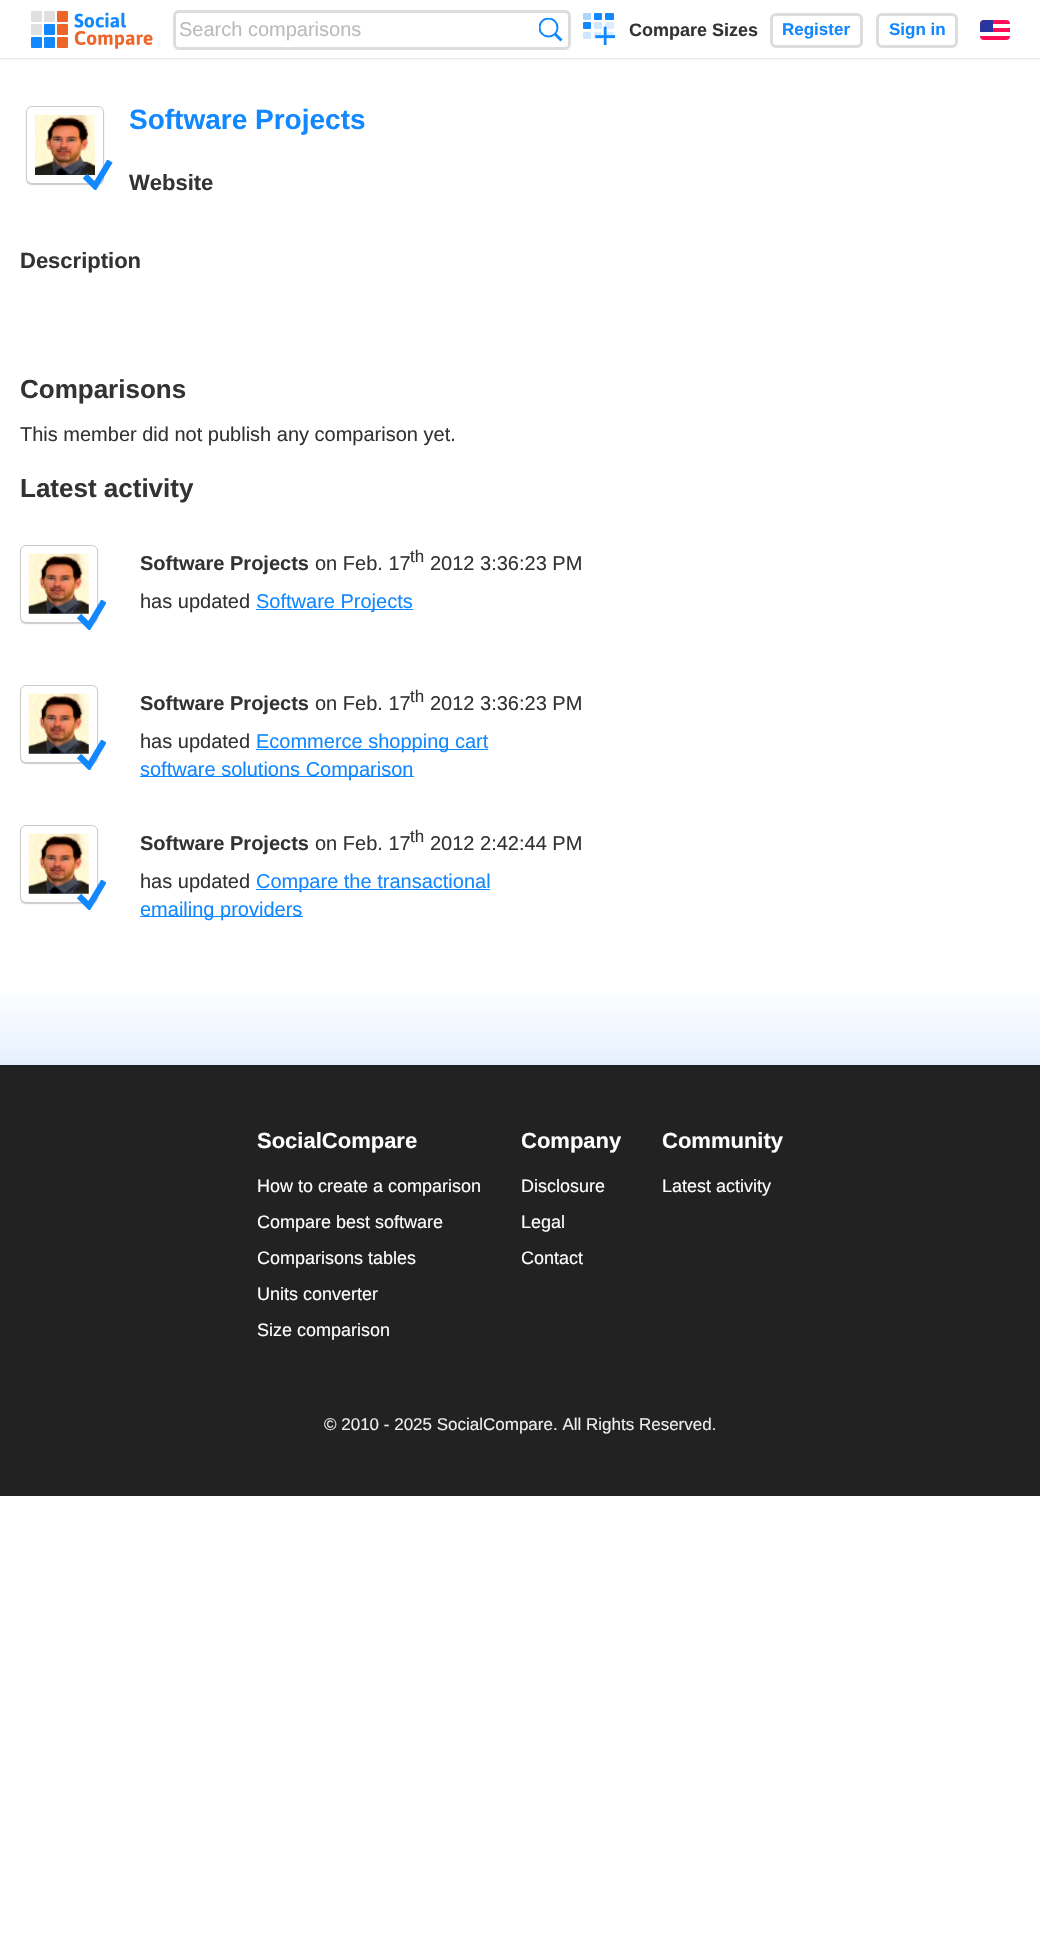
static SkFont makeFont(const char* family, int weight, float size, bool italic = false) {
  SkFontStyle style(weight, SkFontStyle::kNormal_Width,
    italic ? SkFontStyle::kItalic_Slant : SkFontStyle::kUpright_Slant);
  SkFont result(fontMgr->matchFamilyStyle(family, style), size);
  result.setSubpixel(true);
  return result;
}

static void text(SkCanvas* c, const char* s, float x, float y, const SkFont& font, SkColor color) {
  SkPaint ink(SkColor4f::FromColor(color));
  ink.setAntiAlias(true);
  c->drawString(s, x, y, font, ink);
}

static void box(SkCanvas* c, float l, float t, float r, float b, SkColor color) {
  SkPaint ink(SkColor4f::FromColor(color));
  ink.setAntiAlias(true);
  c->drawRect(SkRect::MakeLTRB(l, t, r, b), ink);
}

static void roundBox(SkCanvas* c, float l, float t, float r, float b, float radius, SkColor color) {
  SkPaint ink(SkColor4f::FromColor(color));
  ink.setAntiAlias(true);
  c->drawRoundRect(SkRect::MakeLTRB(l, t, r, b), radius, radius, ink);
}

static void picture(SkCanvas* c, const char* path, float l, float t, float r, float b) {
  auto image = SkImages::DeferredFromEncodedData(SkData::MakeFromFileName(path));
  c->drawImageRect(image, SkRect::MakeLTRB(l, t, r, b), SkSamplingOptions());
}

void draw(SkCanvas* c) {
  SkPaint paint;
  paint.setAntiAlias(true);
  c->clear(0xffffffff);
  {
    const SkColor colors[] = {0xffffffff, 0xffdddddd, 0xffffffff};
    const float stops[] = {0, 0.04f, 0.04f};
    const SkPoint ends[] = {{520, 60}, {520, 0}};
    paint.setShader(SkGradientShader::MakeLinear(ends, colors, stops, 3, SkTileMode::kClamp));
    paint.setAlpha(255);
  }
  c->drawRect(SkRect::MakeLTRB(0, 58, 1040, 60), paint);
  picture(c, "img_01.png", 31, 11, 153, 49);
  paint.setStyle(SkPaint::kStroke_Style);
  paint.setStrokeWidth(3);
  paint.setShader(nullptr);
  paint.setColor(0xffdddddd);
  c->drawRoundRect(SkRect::MakeLTRB(174.5f, 11.5f, 569.5f, 48.5f), 4.5f, 4.5f, paint);
  SkFont face1 = makeFont("Liberation Sans", 400, 20);
  text(c, "Search comparisons", 179, 36, face1, 0xffbbbbbb);
  c->save();
  c->clipRect(SkRect::MakeLTRB(539, 18, 563, 43));
  paint.setStrokeWidth(2);
  paint.setColor(0xff1188ff);
  c->drawCircle(548.5f, 27.5f, 9, paint);
  c->restore();
  paint.setStrokeWidth(3);
  c->drawPath(SkPathBuilder().moveTo(554.5f, 33.5f).lineTo(561.5f, 40.5f).detach(), paint);
  picture(c, "img_02.png", 583, 13, 616, 46);
  SkFont face2 = makeFont("Liberation Sans", 700, 18);
  text(c, "Compare Sizes", 629, 36, face2, 0xff333333);
  paint.setColor(0xffdddddd);
  c->drawRoundRect(SkRect::MakeLTRB(771.5f, 14.5f, 861.5f, 46.5f), 4.5f, 4.5f, paint);
  SkFont face3 = makeFont("Liberation Sans", 700, 17);
  text(c, "Register", 782, 35, face3, 0xff1188ff);
  c->drawRoundRect(SkRect::MakeLTRB(877.5f, 14.5f, 956.5f, 46.5f), 4.5f, 4.5f, paint);
  text(c, "Sign in", 889, 35, face3, 0xff1188ff);
  roundBox(c, 980, 20, 1010, 40, 4, 0xffff0e56);
  box(c, 993, 24, 1010, 28, 0xffffffff);
  box(c, 980, 32, 1010, 36, 0xffffffff);
  paint.setStyle(SkPaint::kFill_Style);
  paint.setColor(0xff2a369f);
  c->drawPath(SkPathBuilder().moveTo(984, 20).lineTo(993, 20).lineTo(993, 32).lineTo(980, 32).lineTo(980, 24).cubicTo(980, 22, 982, 20, 984, 20).close().detach(), paint);
  paint.setColor(0xffcccccc);
  paint.setMaskFilter(SkMaskFilter::MakeBlur(kNormal_SkBlurStyle, 0.5f));
  c->drawRoundRect(SkRect::MakeLTRB(26, 108, 104, 185), 6, 6, paint);
  paint.setMaskFilter(nullptr);
  paint.setColor(0xffffffff);
  c->drawRoundRect(SkRect::MakeLTRB(26.5f, 106.5f, 103.5f, 183.5f), 5.5f, 5.5f, paint);
  paint.setStyle(SkPaint::kStroke_Style);
  paint.setStrokeWidth(1);
  paint.setColor(0xffcccccc);
  c->drawRoundRect(SkRect::MakeLTRB(26.5f, 106.5f, 103.5f, 183.5f), 5.5f, 5.5f, paint);
  picture(c, "img_03.png", 35, 115, 95, 175);
  c->save();
  c->clipRect(SkRect::MakeLTRB(83, 160, 113, 190));
  paint.setStrokeWidth(6.2f);
  paint.setColor(0xff1188ff);
  c->drawPath(SkPathBuilder().moveTo(85, 176).lineTo(95, 186).lineTo(110, 161).detach(), paint);
  c->restore();
  SkFont face4 = makeFont("Liberation Sans", 700, 28);
  text(c, "Software Projects", 129, 129, face4, 0xff1188ff);
  SkFont face5 = makeFont("Liberation Sans", 700, 22);
  text(c, "Website", 129, 190, face5, 0xff333333);
  text(c, "Description", 20, 268, face5, 0xff333333);
  SkFont face6 = makeFont("Liberation Sans", 700, 26);
  text(c, "Comparisons", 20, 398, face6, 0xff333333);
  text(c, "This member did not publish any comparison yet.", 20, 441, face1, 0xff333333);
  text(c, "Latest activity", 20, 497, face6, 0xff333333);
  paint.setStyle(SkPaint::kFill_Style);
  paint.setColor(0xffcccccc);
  paint.setMaskFilter(SkMaskFilter::MakeBlur(kNormal_SkBlurStyle, 0.5f));
  c->drawRoundRect(SkRect::MakeLTRB(20, 546, 98, 624), 6, 6, paint);
  paint.setMaskFilter(nullptr);
  paint.setColor(0xffffffff);
  c->drawRoundRect(SkRect::MakeLTRB(20.5f, 545.5f, 97.5f, 622.5f), 5.5f, 5.5f, paint);
  paint.setStyle(SkPaint::kStroke_Style);
  paint.setStrokeWidth(1);
  paint.setColor(0xffcccccc);
  c->drawRoundRect(SkRect::MakeLTRB(20.5f, 545.5f, 97.5f, 622.5f), 5.5f, 5.5f, paint);
  picture(c, "img_04.png", 28, 553, 89, 614);
  c->save();
  c->clipRect(SkRect::MakeLTRB(76, 600, 106, 630));
  paint.setStrokeWidth(6.2f);
  paint.setColor(0xff1188ff);
  c->drawPath(SkPathBuilder().moveTo(79, 616).lineTo(89, 626).lineTo(104, 601).detach(), paint);
  c->restore();
  SkFont face7 = makeFont("Liberation Sans", 700, 20);
  text(c, "Software Projects", 140, 570, face7, 0xff333333);
  text(c, "on Feb. 17", 315, 570, face1, 0xff333333);
  SkFont face8 = makeFont("Liberation Sans", 400, 17);
  text(c, "th", 410, 562, face8, 0xff333333);
  text(c, "2012 3:36:23 PM", 430, 570, face1, 0xff333333);
  text(c, "has updated", 140, 608, face1, 0xff333333);
  box(c, 256, 609, 413, 610, 0xff1188ff);
  text(c, "Software Projects", 256, 608, face1, 0xff1188ff);
  paint.setStyle(SkPaint::kFill_Style);
  paint.setColor(0xffcccccc);
  paint.setMaskFilter(SkMaskFilter::MakeBlur(kNormal_SkBlurStyle, 0.5f));
  c->drawRoundRect(SkRect::MakeLTRB(20, 686, 98, 764), 6, 6, paint);
  paint.setMaskFilter(nullptr);
  paint.setColor(0xffffffff);
  c->drawRoundRect(SkRect::MakeLTRB(20.5f, 685.5f, 97.5f, 762.5f), 5.5f, 5.5f, paint);
  paint.setStyle(SkPaint::kStroke_Style);
  paint.setStrokeWidth(1);
  paint.setColor(0xffcccccc);
  c->drawRoundRect(SkRect::MakeLTRB(20.5f, 685.5f, 97.5f, 762.5f), 5.5f, 5.5f, paint);
  picture(c, "img_04.png", 28, 693, 89, 754);
  c->save();
  c->clipRect(SkRect::MakeLTRB(76, 740, 106, 770));
  paint.setStrokeWidth(6.2f);
  paint.setColor(0xff1188ff);
  c->drawPath(SkPathBuilder().moveTo(79, 756).lineTo(89, 766).lineTo(104, 741).detach(), paint);
  c->restore();
  text(c, "Software Projects", 140, 710, face7, 0xff333333);
  text(c, "on Feb. 17", 315, 710, face1, 0xff333333);
  text(c, "th", 410, 702, face8, 0xff333333);
  text(c, "2012 3:36:23 PM", 430, 710, face1, 0xff333333);
  text(c, "has updated", 140, 748, face1, 0xff333333);
  box(c, 256, 749, 488, 750, 0xff1188ff);
  text(c, "Ecommerce shopping cart", 256, 748, face1, 0xff1188ff);
  box(c, 140, 776, 414, 777, 0xff1188ff);
  text(c, "software solutions Comparison", 140, 776, face1, 0xff1188ff);
  paint.setStyle(SkPaint::kFill_Style);
  paint.setColor(0xffcccccc);
  paint.setMaskFilter(SkMaskFilter::MakeBlur(kNormal_SkBlurStyle, 0.5f));
  c->drawRoundRect(SkRect::MakeLTRB(20, 826, 98, 904), 6, 6, paint);
  paint.setMaskFilter(nullptr);
  paint.setColor(0xffffffff);
  c->drawRoundRect(SkRect::MakeLTRB(20.5f, 825.5f, 97.5f, 902.5f), 5.5f, 5.5f, paint);
  paint.setStyle(SkPaint::kStroke_Style);
  paint.setStrokeWidth(1);
  paint.setColor(0xffcccccc);
  c->drawRoundRect(SkRect::MakeLTRB(20.5f, 825.5f, 97.5f, 902.5f), 5.5f, 5.5f, paint);
  picture(c, "img_04.png", 28, 833, 89, 894);
  c->save();
  c->clipRect(SkRect::MakeLTRB(76, 880, 106, 910));
  paint.setStrokeWidth(6.2f);
  paint.setColor(0xff1188ff);
  c->drawPath(SkPathBuilder().moveTo(79, 896).lineTo(89, 906).lineTo(104, 881).detach(), paint);
  c->restore();
  text(c, "Software Projects", 140, 850, face7, 0xff333333);
  text(c, "on Feb. 17", 315, 850, face1, 0xff333333);
  text(c, "th", 410, 842, face8, 0xff333333);
  text(c, "2012 2:42:44 PM", 430, 850, face1, 0xff333333);
  text(c, "has updated", 140, 888, face1, 0xff333333);
  box(c, 256, 889, 490, 890, 0xff1188ff);
  text(c, "Compare the transactional", 256, 888, face1, 0xff1188ff);
  box(c, 140, 916, 303, 917, 0xff1188ff);
  text(c, "emailing providers", 140, 916, face1, 0xff1188ff);
  box(c, 0, 1065, 1040, 1496, 0xff222222);
  paint.setStyle(SkPaint::kFill_Style);
  {
    const SkColor colors[] = {0xffe5f0ff, 0xffffffff};
    const float stops[] = {0, 1};
    const SkPoint ends[] = {{520, 1065}, {520, 985}};
    paint.setShader(SkGradientShader::MakeLinear(ends, colors, stops, 2, SkTileMode::kClamp));
    paint.setAlpha(255);
  }
  c->drawRect(SkRect::MakeLTRB(0, 993, 1040, 1065), paint);
  text(c, "SocialCompare", 257, 1148, face5, 0xffffffff);
  SkFont face9 = makeFont("Liberation Sans", 400, 18);
  text(c, "How to create a comparison", 257, 1192, face9, 0xffffffff);
  text(c, "Compare best software", 257, 1228, face9, 0xffffffff);
  text(c, "Comparisons tables", 257, 1264, face9, 0xffffffff);
  text(c, "Units converter", 257, 1300, face9, 0xffffffff);
  text(c, "Size comparison", 257, 1336, face9, 0xffffffff);
  text(c, "Company", 521, 1148, face5, 0xffffffff);
  text(c, "Disclosure", 521, 1192, face9, 0xffffffff);
  text(c, "Legal", 521, 1228, face9, 0xffffffff);
  text(c, "Contact", 521, 1264, face9, 0xffffffff);
  text(c, "Community", 662, 1148, face5, 0xffffffff);
  text(c, "Latest activity", 662, 1192, face9, 0xffffffff);
  text(c, "© 2010 - 2025 SocialCompare. All Rights Reserved.", 324, 1430, face8, 0xffeeeeee);
}
